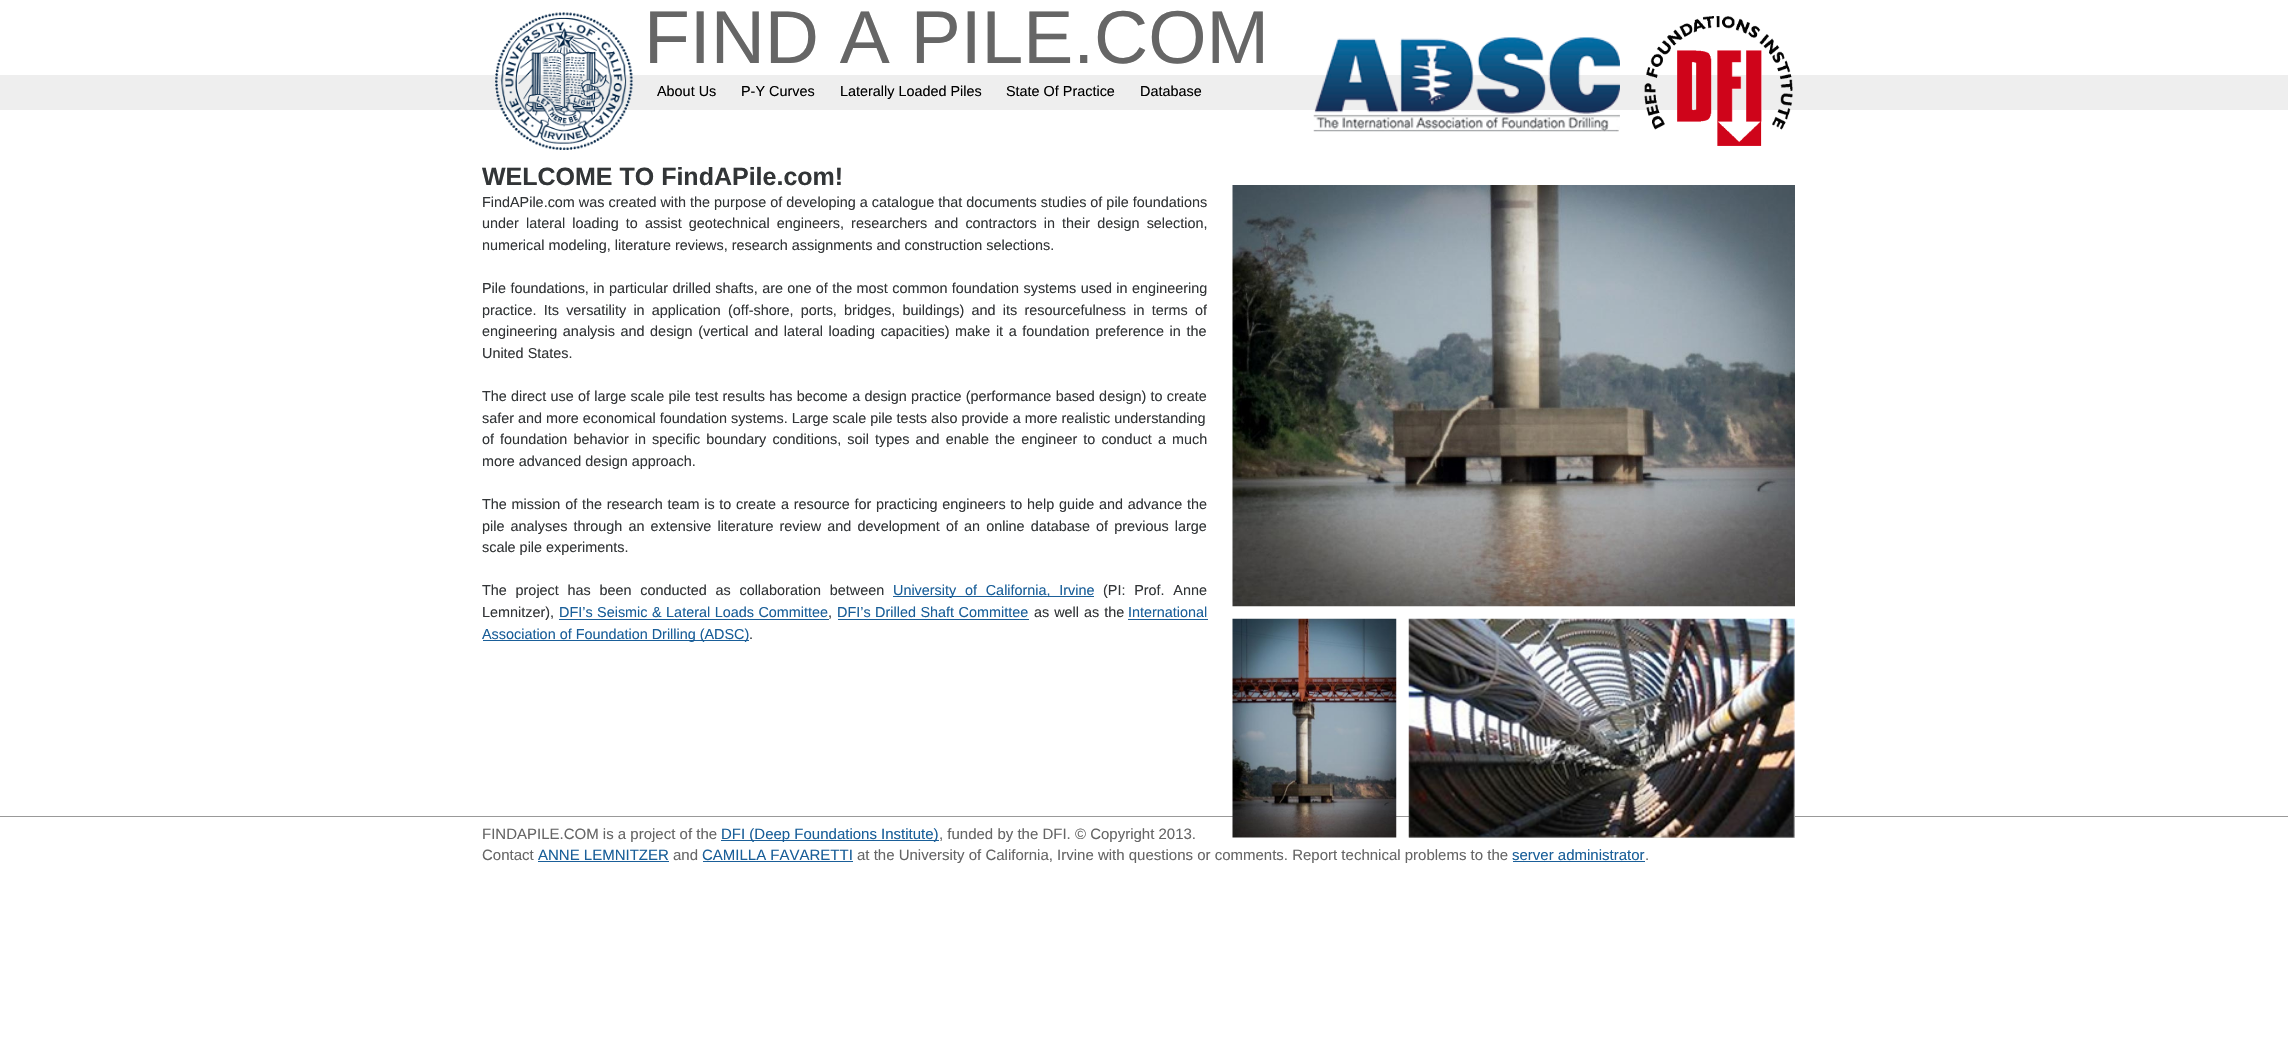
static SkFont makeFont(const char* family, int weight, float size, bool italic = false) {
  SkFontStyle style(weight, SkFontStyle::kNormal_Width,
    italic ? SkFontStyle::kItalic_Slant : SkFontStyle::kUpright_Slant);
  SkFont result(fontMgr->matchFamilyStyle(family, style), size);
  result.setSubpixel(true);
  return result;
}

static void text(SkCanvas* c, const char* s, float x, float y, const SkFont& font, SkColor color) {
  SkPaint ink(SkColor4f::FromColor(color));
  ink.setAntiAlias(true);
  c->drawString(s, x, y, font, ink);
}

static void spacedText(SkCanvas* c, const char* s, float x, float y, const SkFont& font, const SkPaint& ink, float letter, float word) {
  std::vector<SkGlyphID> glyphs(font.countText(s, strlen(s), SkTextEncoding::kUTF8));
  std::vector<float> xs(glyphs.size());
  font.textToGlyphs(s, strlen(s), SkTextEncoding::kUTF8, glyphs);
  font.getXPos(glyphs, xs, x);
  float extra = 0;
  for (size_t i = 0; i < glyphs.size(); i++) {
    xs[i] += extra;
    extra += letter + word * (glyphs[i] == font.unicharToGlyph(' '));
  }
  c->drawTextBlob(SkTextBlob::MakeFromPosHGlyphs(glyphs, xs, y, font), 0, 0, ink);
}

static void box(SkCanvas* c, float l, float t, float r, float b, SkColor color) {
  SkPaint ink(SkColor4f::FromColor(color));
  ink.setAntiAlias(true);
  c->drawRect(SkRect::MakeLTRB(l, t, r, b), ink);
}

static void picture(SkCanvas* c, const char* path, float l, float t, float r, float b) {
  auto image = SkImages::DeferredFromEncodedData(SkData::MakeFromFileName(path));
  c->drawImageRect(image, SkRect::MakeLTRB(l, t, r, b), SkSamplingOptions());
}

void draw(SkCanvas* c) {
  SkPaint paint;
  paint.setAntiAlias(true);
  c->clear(0xffffffff);
  box(c, 0, 75, 2288, 110, 0xffeeeeee);
  picture(c, "img_01.png", 495, 12, 633, 150);
  SkFont face1 = makeFont("Liberation Sans", 400, 75);
  text(c, "FIND A PILE.COM", 644, 63, face1, 0xff666666);
  picture(c, "img_02.png", 1313, 37, 1620, 132);
  picture(c, "img_03.png", 1644, 16, 1793, 146);
  SkFont face2 = makeFont("Liberation Sans", 400, 14.4f);
  text(c, "About Us", 657, 96, face2, 0xff000000);
  text(c, "P-Y Curves", 741, 96, face2, 0xff000000);
  text(c, "Laterally Loaded Piles", 840, 96, face2, 0xff000000);
  text(c, "State Of Practice", 1006, 96, face2, 0xff000000);
  text(c, "Database", 1140, 96, face2, 0xff000000);
  SkFont face3 = makeFont("Liberation Sans", 700, 25);
  text(c, "WELCOME TO FindAPile.com!", 482, 185, face3, 0xff323537);
  text(c, "FindAPile.com was created with the purpose of developing a catalogue that documents studies of pile foundations", 482, 207, face2, 0xff323537);
  paint.setColor(0xff323537);
  spacedText(c, "under lateral loading to assist geotechnical engineers, researchers and contractors in their design selection,", 482, 228, face2, paint, 0, 3.1f);
  text(c, "numerical modeling, literature reviews, research assignments and construction selections.", 482, 250, face2, 0xff323537);
  spacedText(c, "Pile foundations, in particular drilled shafts, are one of the most common foundation systems used in engineering", 482, 293, face2, paint, 0, 0.4f);
  spacedText(c, "practice. Its versatility in application (off-shore, ports, bridges, buildings) and its resourcefulness in terms of", 482, 315, face2, paint, 0, 3.25f);
  spacedText(c, "engineering analysis and design (vertical and lateral loading capacities) make it a foundation preference in the", 482, 336, face2, paint, 0, 1.6f);
  text(c, "United States.", 482, 358, face2, 0xff323537);
  spacedText(c, "The direct use of large scale pile test results has become a design practice (performance based design) to create", 482, 401, face2, paint, 0, 0.25f);
  text(c, "safer and more economical foundation systems. Large scale pile tests also provide a more realistic understanding", 482, 423, face2, 0xff323537);
  spacedText(c, "of foundation behavior in specific boundary conditions, soil types and enable the engineer to conduct a much", 482, 444, face2, paint, 0, 2.1f);
  text(c, "more advanced design approach.", 482, 466, face2, 0xff323537);
  spacedText(c, "The mission of the research team is to create a resource for practicing engineers to help guide and advance the", 482, 509, face2, paint, 0, 0.75f);
  spacedText(c, "pile analyses through an extensive literature review and development of an online database of previous large", 482, 531, face2, paint, 0, 2.1f);
  text(c, "scale pile experiments.", 482, 552, face2, 0xff323537);
  spacedText(c, "The project has been conducted as collaboration between", 482, 595, face2, paint, 0, 4.75f);
  box(c, 893, 596, 1094, 597, 0xff1a5f99);
  paint.setColor(0xff1a5f99);
  spacedText(c, "University of California, Irvine", 893, 595, face2, paint, 0, 4.75f);
  paint.setColor(0xff323537);
  spacedText(c, "(PI: Prof. Anne", 1103, 595, face2, paint, 0, 4.75f);
  text(c, "Lemnitzer),", 482, 617, face2, 0xff323537);
  paint.setColor(0xff1a5f99);
  spacedText(c, "DFI’s Seismic & Lateral Loads Committee", 559, 617, face2, paint, 0, 0.5f);
  box(c, 559, 619, 829, 620, 0xff1a5f99);
  text(c, ",", 828, 617, face2, 0xff323537);
  spacedText(c, "DFI’s Drilled Shaft Committee", 837, 617, face2, paint, 0, 0.5f);
  box(c, 838, 619, 1029, 620, 0xff1a5f99);
  paint.setColor(0xff323537);
  spacedText(c, "as well as the", 1034, 617, face2, paint, 0, 1);
  text(c, "International", 1128, 617, face2, 0xff1a5f99);
  box(c, 1128, 619, 1208, 620, 0xff1a5f99);
  box(c, 483, 640, 749, 641, 0xff1a5f99);
  text(c, "Association of Foundation Drilling (ADSC)", 482, 639, face2, 0xff1a5f99);
  text(c, ".", 749, 639, face2, 0xff323537);
  picture(c, "img_04.png", 1232, 185, 1795, 607);
  box(c, 0, 816, 2288, 817, 0xff999999);
  picture(c, "img_05.png", 1232, 618, 1397, 838);
  box(c, 1409, 837, 1795, 838, 0xffcccccc);
  picture(c, "img_06.png", 1408, 618, 1795, 838);
  SkFont face4 = makeFont("Liberation Sans", 400, 15);
  text(c, "FINDAPILE.COM is a project of the", 482, 839, face4, 0xff666666);
  box(c, 721, 840, 939, 841, 0xff1a5f99);
  text(c, "DFI (Deep Foundations Institute)", 721, 839, face4, 0xff1a5f99);
  text(c, ", funded by the DFI. © Copyright 2013.", 939, 839, face4, 0xff666666);
  text(c, "Contact", 482, 860, face4, 0xff666666);
  text(c, "ANNE LEMNITZER", 538, 860, face4, 0xff1a5f99);
  box(c, 538, 861, 669, 862, 0xff1a5f99);
  text(c, "and", 673, 860, face4, 0xff666666);
  text(c, "CAMILLA FAVARETTI", 702, 860, face4, 0xff1a5f99);
  box(c, 703, 861, 853, 862, 0xff1a5f99);
  text(c, "at the University of California, Irvine with questions or comments. Report technical problems to the", 857, 860, face4, 0xff666666);
  text(c, "server administrator", 1512, 860, face4, 0xff1a5f99);
  box(c, 1513, 861, 1645, 862, 0xff1a5f99);
  text(c, ".", 1645, 860, face4, 0xff666666);
}
